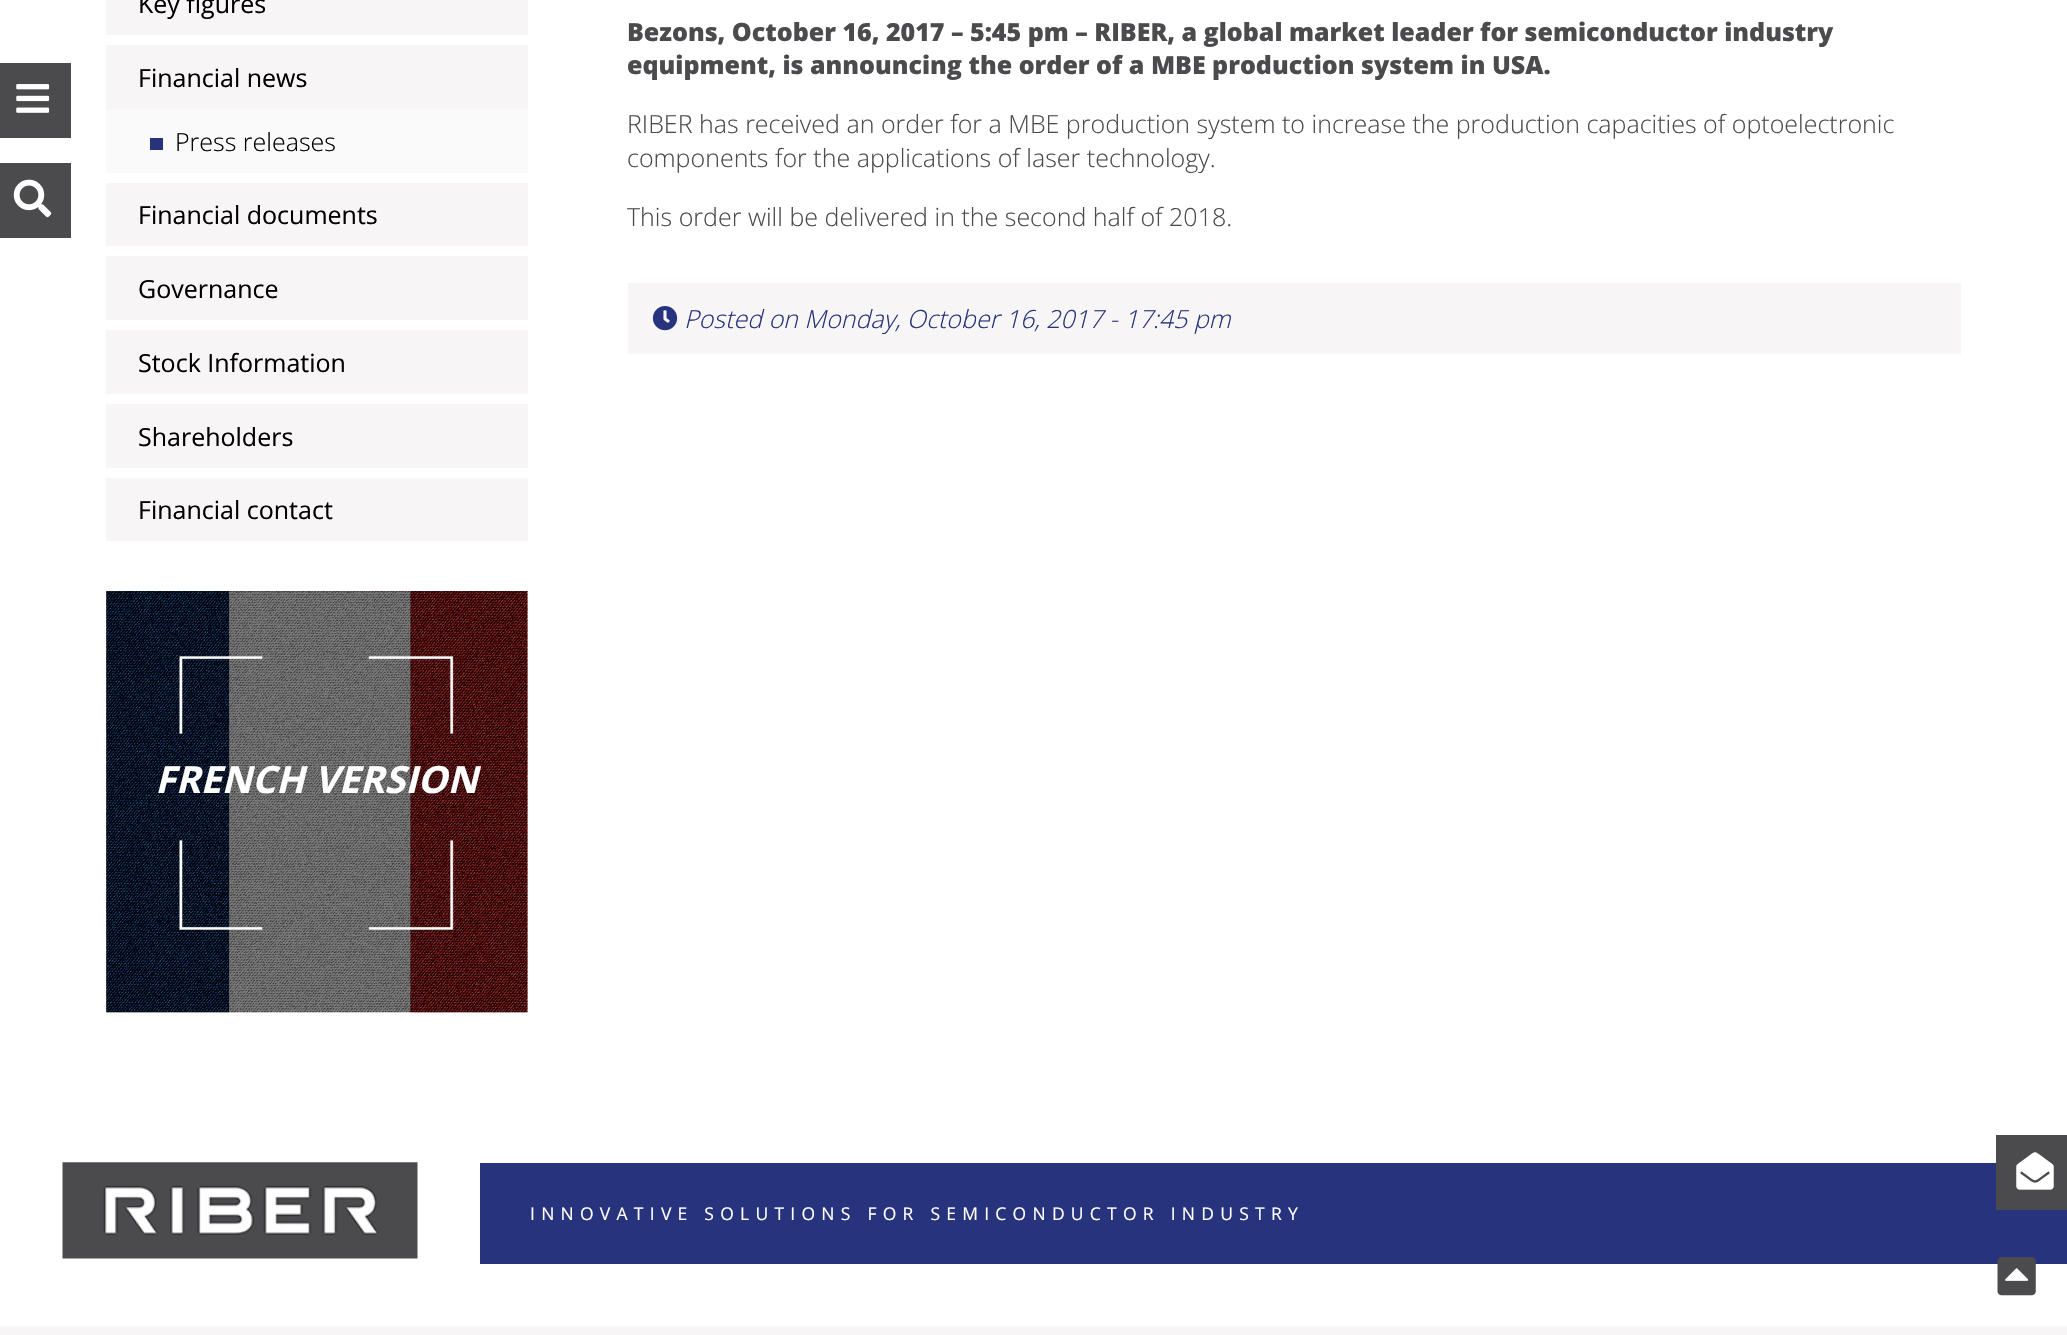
static SkFont makeFont(const char* family, int weight, float size, bool italic = false) {
  SkFontStyle style(weight, SkFontStyle::kNormal_Width,
    italic ? SkFontStyle::kItalic_Slant : SkFontStyle::kUpright_Slant);
  SkFont result(fontMgr->matchFamilyStyle(family, style), size);
  result.setSubpixel(true);
  return result;
}

static void text(SkCanvas* c, const char* s, float x, float y, const SkFont& font, SkColor color) {
  SkPaint ink(SkColor4f::FromColor(color));
  ink.setAntiAlias(true);
  c->drawString(s, x, y, font, ink);
}

static void spacedText(SkCanvas* c, const char* s, float x, float y, const SkFont& font, const SkPaint& ink, float letter, float word) {
  std::vector<SkGlyphID> glyphs(font.countText(s, strlen(s), SkTextEncoding::kUTF8));
  std::vector<float> xs(glyphs.size());
  font.textToGlyphs(s, strlen(s), SkTextEncoding::kUTF8, glyphs);
  font.getXPos(glyphs, xs, x);
  float extra = 0;
  for (size_t i = 0; i < glyphs.size(); i++) {
    xs[i] += extra;
    extra += letter + word * (glyphs[i] == font.unicharToGlyph(' '));
  }
  c->drawTextBlob(SkTextBlob::MakeFromPosHGlyphs(glyphs, xs, y, font), 0, 0, ink);
}

static void box(SkCanvas* c, float l, float t, float r, float b, SkColor color) {
  SkPaint ink(SkColor4f::FromColor(color));
  ink.setAntiAlias(true);
  c->drawRect(SkRect::MakeLTRB(l, t, r, b), ink);
}

static void picture(SkCanvas* c, const char* path, float l, float t, float r, float b) {
  auto image = SkImages::DeferredFromEncodedData(SkData::MakeFromFileName(path));
  c->drawImageRect(image, SkRect::MakeLTRB(l, t, r, b), SkSamplingOptions());
}

void draw(SkCanvas* c) {
  SkPaint paint;
  paint.setAntiAlias(true);
  c->clear(0xffffffff);
  box(c, 0, 63, 71, 138, 0xff4b4b4d);
  picture(c, "img_01.png", 16, 84, 50, 113);
  box(c, 106, 0, 528, 35, 0xfff7f5f5);
  SkFont face1 = makeFont("Open Sans", 400, 25);
  text(c, "Key figures", 138, 13, face1, 0xff000000);
  box(c, 106, 45, 528, 109, 0xfff7f5f5);
  text(c, "Financial news", 138, 87, face1, 0xff000000);
  box(c, 106, 109, 528, 173, 0xfffbfafa);
  box(c, 150, 138, 163, 150, 0xff28337d);
  SkFont face2 = makeFont("Open Sans", 300, 25);
  text(c, "Press releases", 175, 151, face2, 0xff000000);
  box(c, 106, 183, 528, 246, 0xfff7f5f5);
  text(c, "Financial documents", 138, 224, face1, 0xff000000);
  box(c, 106, 256, 528, 320, 0xfff7f5f5);
  text(c, "Governance", 138, 298, face1, 0xff000000);
  box(c, 106, 330, 528, 394, 0xfff7f5f5);
  text(c, "Stock Information", 138, 372, face1, 0xff000000);
  box(c, 106, 404, 528, 468, 0xfff7f5f5);
  text(c, "Shareholders", 138, 446, face1, 0xff000000);
  box(c, 106, 478, 528, 541, 0xfff7f5f5);
  text(c, "Financial contact", 138, 519, face1, 0xff000000);
  picture(c, "img_02.png", 106, 591, 528, 1013);
  picture(c, "img_03.png", 106, 591, 528, 1013);
  SkFont face3 = makeFont("Open Sans", 700, 37.5f, true);
  text(c, "FRENCH VERSION", 155, 793, face3, 0xffffffff);
  SkFont face4 = makeFont("Open Sans", 800, 25);
  text(c, "Bezons, October 16, 2017 – 5:45 pm – RIBER, a global market leader for semiconductor industry", 627, 41, face4, 0xff4b4b4d);
  text(c, "equipment, is announcing the order of a MBE production system in USA.", 627, 74, face4, 0xff4b4b4d);
  text(c, "RIBER has received an order for a MBE production system to increase the production capacities of optoelectronic", 627, 133, face2, 0xff4b4b4d);
  text(c, "components for the applications of laser technology.", 627, 167, face2, 0xff4b4b4d);
  text(c, "This order will be delivered in the second half of 2018.", 627, 226, face2, 0xff4b4b4d);
  box(c, 628, 283, 1961, 354, 0xfff7f5f5);
  picture(c, "img_04.png", 652, 306, 678, 331);
  SkFont face5 = makeFont("Open Sans", 300, 25, true);
  text(c, "Posted on Monday, October 16, 2017 - 17:45 pm", 684, 328, face5, 0xff28337d);
  box(c, 0, 163, 71, 238, 0xff4b4b4d);
  picture(c, "img_05.png", 13, 179, 52, 218);
  box(c, 480, 1163, 2067, 1264, 0xff28337d);
  box(c, 1996, 1135, 2067, 1210, 0xff4b4b4d);
  picture(c, "img_06.png", 2016, 1152, 2054, 1190);
  picture(c, "img_07.png", 62, 1162, 418, 1259);
  SkFont face6 = makeFont("Open Sans", 400, 17.5f);
  paint.setColor(0xffffffff);
  spacedText(c, "INNOVATIVE SOLUTIONS FOR SEMICONDUCTOR INDUSTRY", 530, 1220, face6, paint, 6.25f, 0);
  picture(c, "img_08.png", 1997, 1257, 2036, 1296);
  box(c, 0, 1326, 2067, 1335, 0xfff7f5f5);
}
